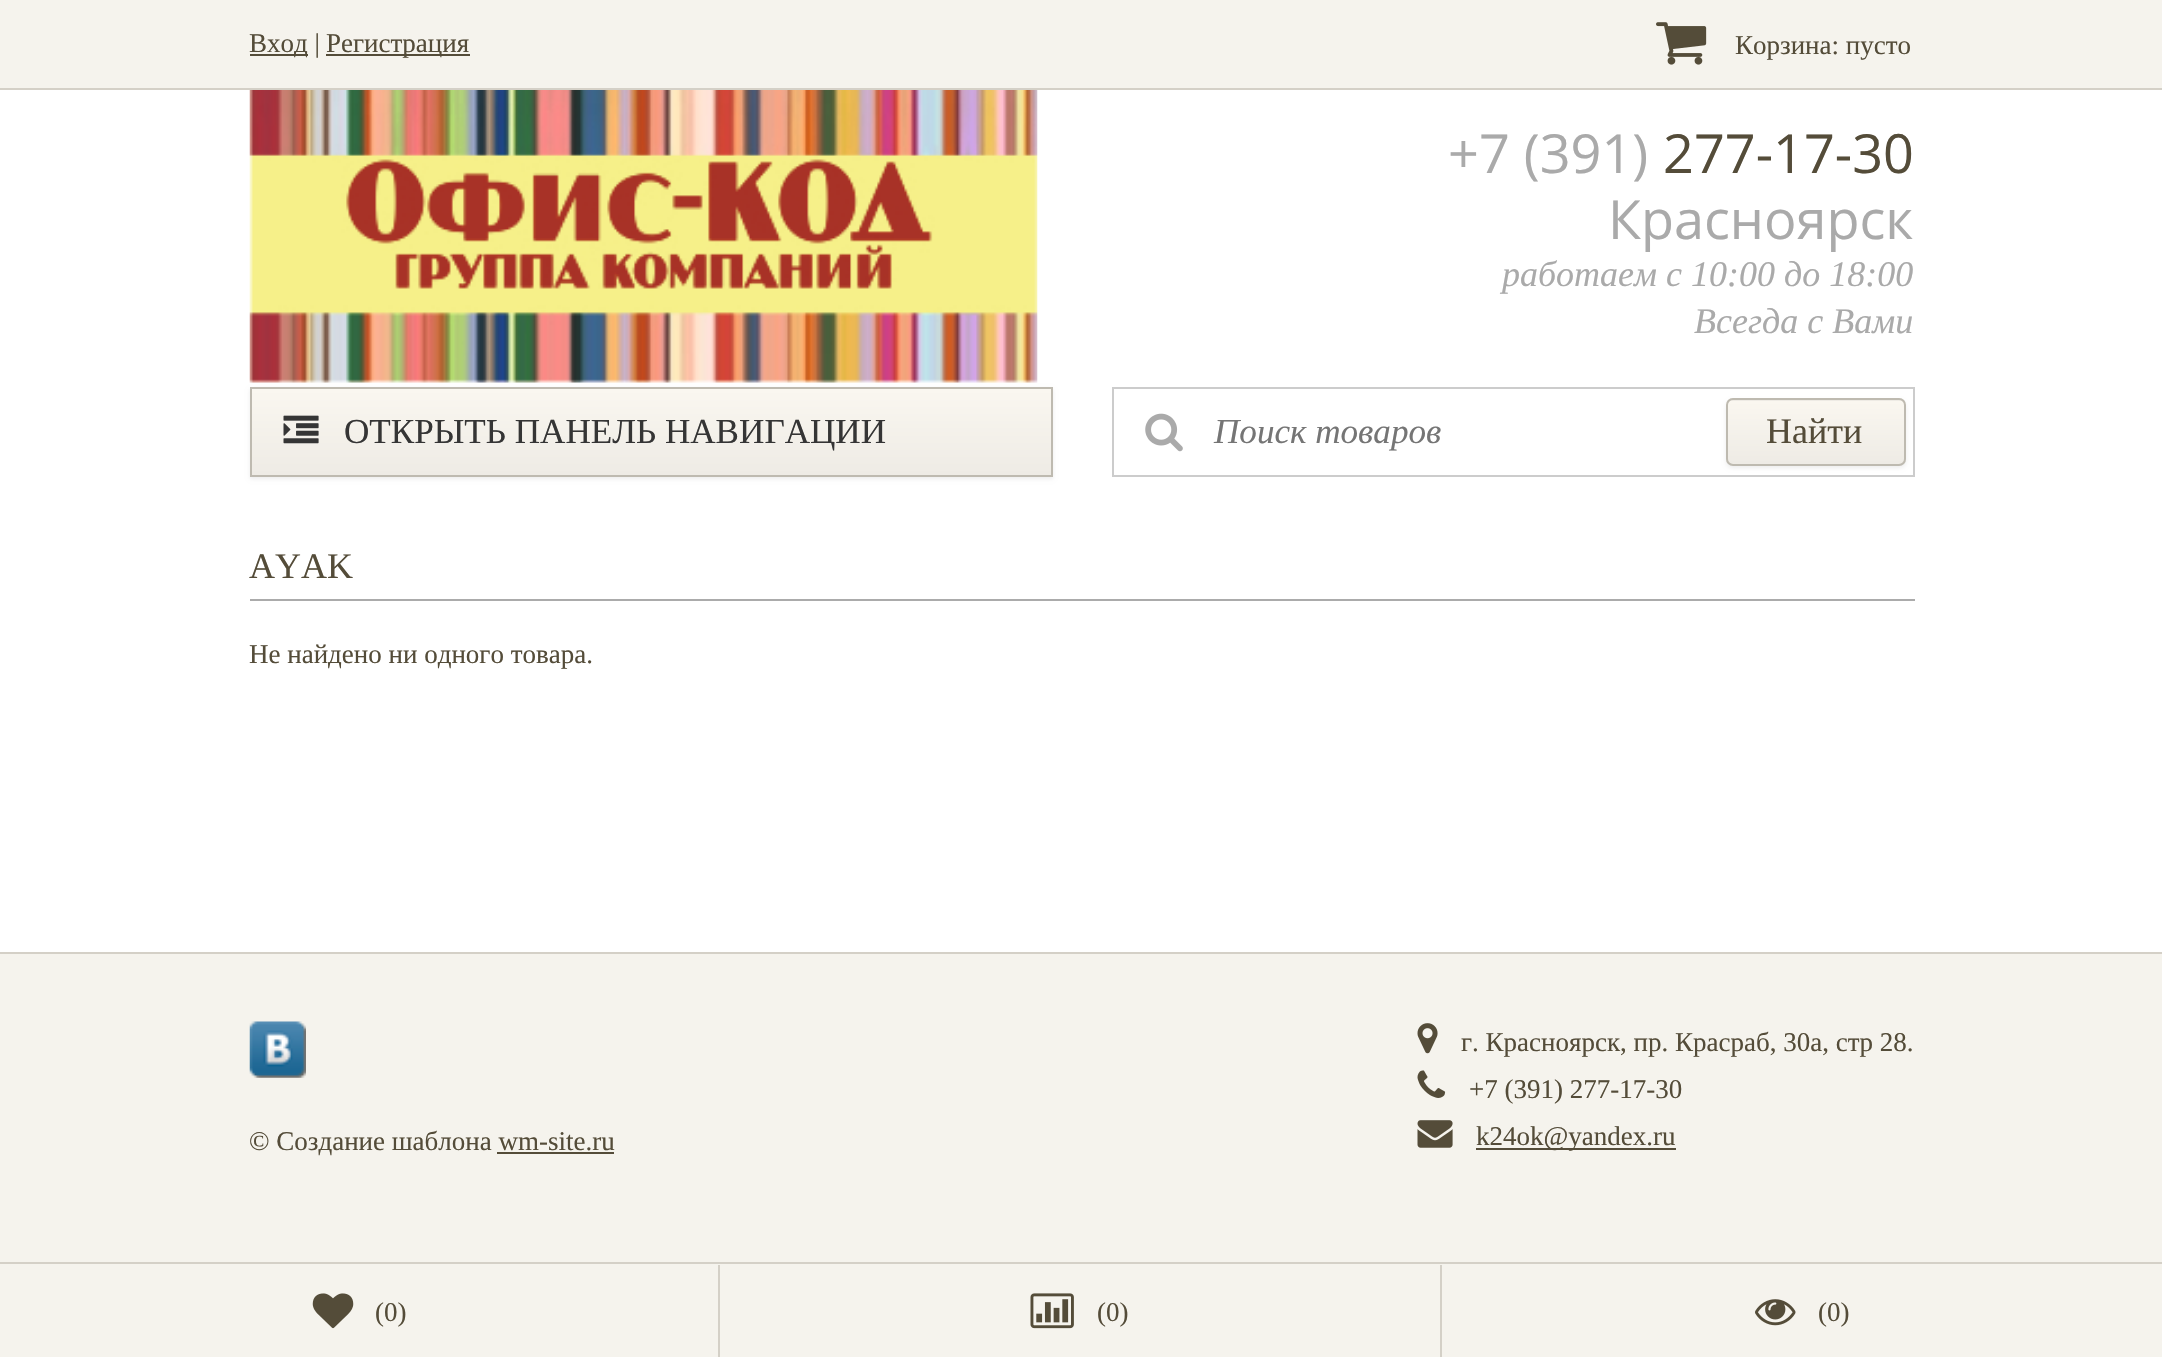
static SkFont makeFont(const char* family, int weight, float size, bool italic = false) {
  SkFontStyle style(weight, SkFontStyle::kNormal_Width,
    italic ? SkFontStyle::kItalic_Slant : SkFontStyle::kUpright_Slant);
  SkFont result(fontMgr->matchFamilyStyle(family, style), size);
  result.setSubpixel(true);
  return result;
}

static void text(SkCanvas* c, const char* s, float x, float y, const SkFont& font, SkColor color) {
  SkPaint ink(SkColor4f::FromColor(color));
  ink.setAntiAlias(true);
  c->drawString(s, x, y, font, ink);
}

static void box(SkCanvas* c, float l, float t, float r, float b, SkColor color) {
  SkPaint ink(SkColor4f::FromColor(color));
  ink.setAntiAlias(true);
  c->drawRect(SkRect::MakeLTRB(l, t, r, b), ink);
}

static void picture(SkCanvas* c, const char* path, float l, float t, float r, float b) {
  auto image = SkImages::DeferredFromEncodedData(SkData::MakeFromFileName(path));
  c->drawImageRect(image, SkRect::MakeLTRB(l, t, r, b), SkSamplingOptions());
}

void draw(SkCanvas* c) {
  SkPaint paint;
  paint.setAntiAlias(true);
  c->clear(0xffffffff);
  box(c, 0, 0, 2162, 88, 0xfff5f3ed);
  box(c, 0, 88, 2162, 90, 0xffd4d0c7);
  box(c, 250, 54, 308, 56, 0xff544c39);
  SkFont face1 = makeFont("Liberation Serif", 400, 27);
  text(c, "Вход |", 249, 52, face1, 0xff544c39);
  box(c, 326, 54, 470, 56, 0xff544c39);
  text(c, "Регистрация", 326, 52, face1, 0xff544c39);
  picture(c, "img_01.png", 1656, 22, 1707, 65);
  text(c, "Корзина: пусто", 1735, 54, face1, 0xff544c39);
  paint.setColor(0x12040404);
  paint.setMaskFilter(SkMaskFilter::MakeBlur(kNormal_SkBlurStyle, 2));
  c->drawRect(SkRect::MakeLTRB(250, 389, 1053, 479), paint);
  paint.setMaskFilter(nullptr);
  picture(c, "img_02.png", 249, 90, 1038, 383);
  SkFont face2 = makeFont("Open Sans", 400, 54);
  text(c, "+7 (391)", 1448, 173, face2, 0xffaaaaaa);
  text(c, "277-17-30", 1663, 173, face2, 0xff544c39);
  text(c, "Красноярск", 1608, 239, face2, 0xffaaaaaa);
  SkFont face3 = makeFont("Liberation Serif", 400, 36, true);
  text(c, "работаем с 10:00 до 18:00", 1502, 286, face3, 0xffaaaaaa);
  text(c, "Всегда с Вами", 1694, 333, face3, 0xffaaaaaa);
  {
    const SkColor colors[] = {0xffeeebe5, 0xfffaf7f0};
    const float stops[] = {0, 1};
    const SkPoint ends[] = {{651, 475}, {651, 389}};
    paint.setShader(SkGradientShader::MakeLinear(ends, colors, stops, 2, SkTileMode::kClamp));
    paint.setAlpha(255);
  }
  c->drawRect(SkRect::MakeLTRB(252, 389, 1051, 475), paint);
  paint.setStyle(SkPaint::kStroke_Style);
  paint.setStrokeWidth(2);
  paint.setShader(nullptr);
  paint.setColor(0xffbebab0);
  c->drawRect(SkRect::MakeLTRB(251, 388, 1052, 476), paint);
  picture(c, "img_03.png", 283, 415, 319, 444);
  SkFont face4 = makeFont("Liberation Serif", 400, 35.1f);
  text(c, "ОТКРЫТЬ ПАНЕЛЬ НАВИГАЦИИ", 344, 443, face4, 0xff353535);
  paint.setColor(0xffcccccc);
  c->drawRect(SkRect::MakeLTRB(1113, 388, 1914, 476), paint);
  picture(c, "img_04.png", 1145, 413, 1183, 452);
  SkFont face5 = makeFont("Liberation Serif", 400, 35.1f, true);
  text(c, "Поиск товаров", 1214, 443, face5, 0xff757575);
  paint.setStyle(SkPaint::kFill_Style);
  paint.setColor(0x12040404);
  paint.setMaskFilter(SkMaskFilter::MakeBlur(kNormal_SkBlurStyle, 2));
  c->drawRoundRect(SkRect::MakeLTRB(1726, 401, 1906, 468), 7, 7, paint);
  paint.setMaskFilter(nullptr);
  c->save();
  c->clipPath(SkPathBuilder().moveTo(1733, 398).lineTo(1899, 398).cubicTo(1903, 398, 1906, 401, 1906, 405).lineTo(1906, 459).cubicTo(1906, 463, 1903, 466, 1899, 466).lineTo(1733, 466).cubicTo(1729, 466, 1726, 463, 1726, 459).lineTo(1726, 405).cubicTo(1726, 401, 1729, 398, 1733, 398).close().detach(), true);
  {
    const SkColor colors[] = {0xffeeebe5, 0xfffaf7f0};
    const float stops[] = {0, 1};
    const SkPoint ends[] = {{1816, 401}, {1816, 338}};
    paint.setShader(SkGradientShader::MakeLinear(ends, colors, stops, 2, SkTileMode::kClamp));
    paint.setAlpha(255);
  }
  c->drawRect(SkRect::MakeLTRB(1726, 398, 1906, 401), paint);
  {
    const SkColor colors[] = {0xffeeebe5, 0xfffaf7f0};
    const float stops[] = {0, 1};
    const SkPoint ends[] = {{1816, 464}, {1816, 401}};
    paint.setShader(SkGradientShader::MakeLinear(ends, colors, stops, 2, SkTileMode::kClamp));
    paint.setAlpha(255);
  }
  c->drawRect(SkRect::MakeLTRB(1726, 401, 1906, 464), paint);
  c->restore();
  paint.setStyle(SkPaint::kStroke_Style);
  paint.setShader(nullptr);
  paint.setColor(0xffbebab0);
  c->drawRoundRect(SkRect::MakeLTRB(1727, 399, 1905, 465), 6, 6, paint);
  SkFont face6 = makeFont("Liberation Serif", 400, 36);
  text(c, "Найти", 1766, 443, face6, 0xff544c39);
  box(c, 250, 599, 1915, 601, 0xffababab);
  text(c, "AYAK", 249, 578, face6, 0xff544c39);
  text(c, "Не найдено ни одного товара.", 249, 663, face1, 0xff544c39);
  box(c, 0, 954, 2162, 1357, 0xfff5f3ed);
  box(c, 0, 952, 2162, 954, 0xffd4d0c7);
  picture(c, "img_05.png", 249, 1021, 306, 1078);
  text(c, "© Создание шаблона wm-site.ru", 249, 1150, face1, 0xff544c39);
  box(c, 497, 1152, 614, 1154, 0xff544c39);
  picture(c, "img_06.png", 1417, 1023, 1438, 1054);
  text(c, "г. Красноярск, пр. Красраб, 30а, стр 28.", 1461, 1051, face1, 0xff544c39);
  picture(c, "img_07.png", 1417, 1070, 1446, 1098);
  text(c, "+7 (391) 277-17-30", 1469, 1098, face1, 0xff544c39);
  picture(c, "img_08.png", 1417, 1120, 1453, 1148);
  box(c, 1476, 1148, 1676, 1150, 0xff544c39);
  text(c, "k24ok@yandex.ru", 1476, 1145, face1, 0xff544c39);
  box(c, 0, 1262, 2162, 1264, 0xffd4d0c7);
  box(c, 718, 1265, 720, 1357, 0xffd4d0c7);
  picture(c, "img_09.png", 312, 1293, 354, 1329);
  text(c, "(0)", 375, 1321, face1, 0xff544c39);
  box(c, 1440, 1265, 1442, 1357, 0xffd4d0c7);
  picture(c, "img_10.png", 1030, 1293, 1074, 1329);
  text(c, "(0)", 1097, 1321, face1, 0xff544c39);
  picture(c, "img_11.png", 1755, 1299, 1796, 1326);
  text(c, "(0)", 1818, 1321, face1, 0xff544c39);
}
